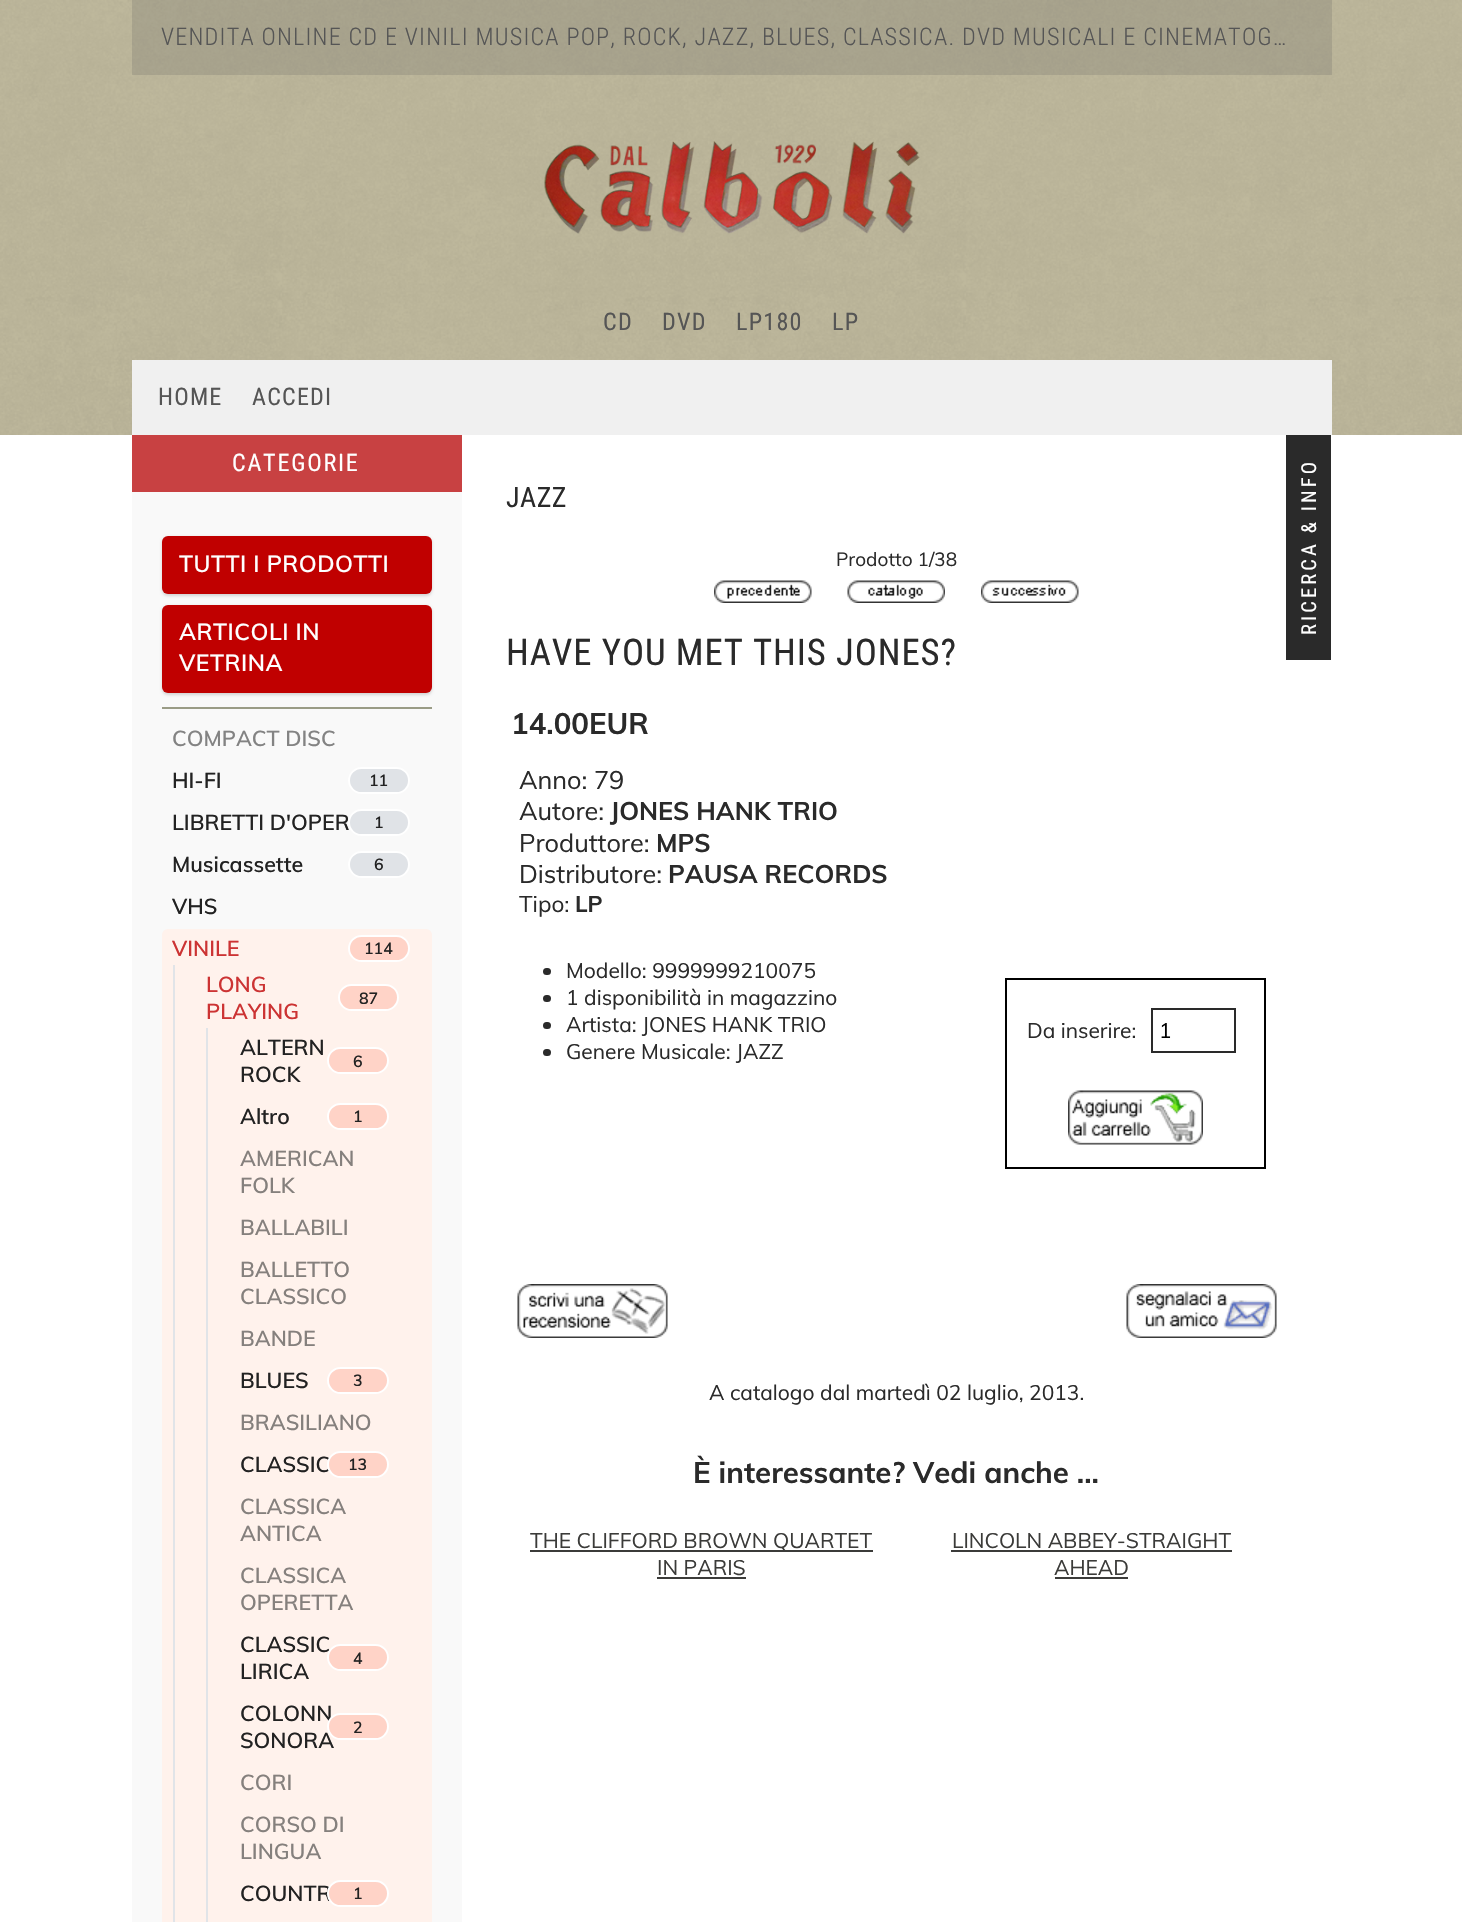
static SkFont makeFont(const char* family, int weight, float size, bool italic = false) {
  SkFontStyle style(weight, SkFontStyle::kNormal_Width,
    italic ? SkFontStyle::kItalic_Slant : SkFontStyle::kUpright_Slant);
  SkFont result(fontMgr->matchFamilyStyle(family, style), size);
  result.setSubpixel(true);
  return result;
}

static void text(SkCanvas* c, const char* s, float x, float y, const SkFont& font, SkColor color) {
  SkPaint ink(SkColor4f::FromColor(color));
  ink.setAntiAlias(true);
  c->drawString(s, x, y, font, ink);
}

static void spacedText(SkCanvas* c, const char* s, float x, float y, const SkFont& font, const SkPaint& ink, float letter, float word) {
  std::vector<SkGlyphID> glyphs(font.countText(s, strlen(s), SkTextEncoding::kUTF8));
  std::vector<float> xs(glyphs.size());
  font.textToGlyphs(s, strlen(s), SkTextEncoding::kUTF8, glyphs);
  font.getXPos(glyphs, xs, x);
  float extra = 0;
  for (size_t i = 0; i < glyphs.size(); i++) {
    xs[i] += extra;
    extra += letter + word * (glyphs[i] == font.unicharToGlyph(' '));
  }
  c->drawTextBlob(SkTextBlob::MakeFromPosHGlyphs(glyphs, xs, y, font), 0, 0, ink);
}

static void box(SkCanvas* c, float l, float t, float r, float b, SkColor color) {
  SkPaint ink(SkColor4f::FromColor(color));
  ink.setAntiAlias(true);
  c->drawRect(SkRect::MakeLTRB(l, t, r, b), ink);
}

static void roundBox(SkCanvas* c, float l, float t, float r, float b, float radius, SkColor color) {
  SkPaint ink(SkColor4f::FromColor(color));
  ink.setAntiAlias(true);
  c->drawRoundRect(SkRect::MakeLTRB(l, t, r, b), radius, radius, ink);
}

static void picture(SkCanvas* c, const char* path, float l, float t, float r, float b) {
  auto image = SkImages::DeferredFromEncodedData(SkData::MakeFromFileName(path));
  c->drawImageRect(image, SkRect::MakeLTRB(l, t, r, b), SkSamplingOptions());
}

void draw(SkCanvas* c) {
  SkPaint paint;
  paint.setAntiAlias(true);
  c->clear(0xffffffff);
  picture(c, "img_01.png", 0, 0, 1462, 435);
  box(c, 132, 0, 1332, 75, 0x335a5a5a);
  SkFont face1 = makeFont("Roboto Condensed", 300, 24.15f);
  paint.setColor(0xff555555);
  spacedText(c, "VENDITA ONLINE CD E VINILI MUSICA POP, ROCK, JAZZ, BLUES, CLASSICA. DVD MUSICALI E CINEMATOG…", 161, 45, face1, paint, 1.2f, 0);
  picture(c, "img_02.png", 544, 141, 920, 234);
  SkFont face2 = makeFont("Roboto Condensed", 400, 24.15f);
  spacedText(c, "CD", 603, 330, face2, paint, 1.2f, 0);
  spacedText(c, "DVD", 662, 330, face2, paint, 1.2f, 0);
  spacedText(c, "LP180", 736, 330, face2, paint, 1.2f, 0);
  spacedText(c, "LP", 832, 330, face2, paint, 1.2f, 0);
  box(c, 132, 360, 1332, 435, 0xfff0f0f0);
  spacedText(c, "HOME", 158, 405, face2, paint, 1.2f, 0);
  spacedText(c, "ACCEDI", 252, 405, face2, paint, 1.2f, 0);
  box(c, 132, 435, 462, 492, 0xffc84142);
  paint.setColor(0xffffffff);
  spacedText(c, "CATEGORIE", 232, 471, face2, paint, 1.75f, 0);
  box(c, 132, 492, 462, 1922, 0xfff9f9f9);
  paint.setColor(0x26000000);
  paint.setMaskFilter(SkMaskFilter::MakeBlur(kNormal_SkBlurStyle, 1.5f));
  c->drawRoundRect(SkRect::MakeLTRB(162, 537, 432, 596), 6, 6, paint);
  paint.setMaskFilter(nullptr);
  roundBox(c, 162, 536, 432, 594, 6, 0xffc00000);
  SkFont face3 = makeFont("Muli", 600, 23);
  paint.setColor(0xffffffff);
  spacedText(c, "TUTTI I PRODOTTI", 179, 572, face3, paint, 0.5f, 0);
  paint.setColor(0x26000000);
  paint.setMaskFilter(SkMaskFilter::MakeBlur(kNormal_SkBlurStyle, 1.5f));
  c->drawRoundRect(SkRect::MakeLTRB(162, 606, 432, 695), 6, 6, paint);
  paint.setMaskFilter(nullptr);
  roundBox(c, 162, 605, 432, 693, 6, 0xffc00000);
  paint.setColor(0xffffffff);
  spacedText(c, "ARTICOLI IN", 179, 640, face3, paint, 0.5f, 0);
  spacedText(c, "VETRINA", 179, 671, face3, paint, 0.5f, 0);
  box(c, 162, 707, 432, 709, 0xff9a9c86);
  SkFont face4 = makeFont("Muli", 600, 21.5f);
  text(c, "COMPACT DISC", 172, 746, face4, 0xff838383);
  text(c, "HI-FI", 172, 788, face4, 0xff222222);
  paint.setColor(0xffe0e3e7);
  c->drawRoundRect(SkRect::MakeLTRB(349, 768, 409, 793), 12.5f, 12.5f, paint);
  paint.setStyle(SkPaint::kStroke_Style);
  paint.setStrokeWidth(2);
  paint.setColor(0xffffffff);
  c->drawRoundRect(SkRect::MakeLTRB(349, 768, 409, 793), 12.5f, 12.5f, paint);
  SkFont face5 = makeFont("Muli", 600, 16);
  text(c, "11", 369, 786, face5, 0xff222222);
  text(c, "LIBRETTI D'OPER", 172, 830, face4, 0xff222222);
  paint.setStyle(SkPaint::kFill_Style);
  paint.setColor(0xffe0e3e7);
  c->drawRoundRect(SkRect::MakeLTRB(349, 810, 409, 835), 12.5f, 12.5f, paint);
  paint.setStyle(SkPaint::kStroke_Style);
  paint.setColor(0xffffffff);
  c->drawRoundRect(SkRect::MakeLTRB(349, 810, 409, 835), 12.5f, 12.5f, paint);
  text(c, "1", 374, 828, face5, 0xff222222);
  text(c, "Musicassette", 172, 872, face4, 0xff222222);
  paint.setStyle(SkPaint::kFill_Style);
  paint.setColor(0xffe0e3e7);
  c->drawRoundRect(SkRect::MakeLTRB(349, 852, 409, 877), 12.5f, 12.5f, paint);
  paint.setStyle(SkPaint::kStroke_Style);
  paint.setColor(0xffffffff);
  c->drawRoundRect(SkRect::MakeLTRB(349, 852, 409, 877), 12.5f, 12.5f, paint);
  text(c, "6", 374, 870, face5, 0xff222222);
  text(c, "VHS", 172, 914, face4, 0xff222222);
  roundBox(c, 162, 929, 432, 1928, 6, 0xfffff2ec);
  text(c, "VINILE", 172, 956, face4, 0xffcc3333);
  paint.setStyle(SkPaint::kFill_Style);
  paint.setColor(0xffffd3c7);
  c->drawRoundRect(SkRect::MakeLTRB(349, 936, 409, 961), 12.5f, 12.5f, paint);
  paint.setStyle(SkPaint::kStroke_Style);
  paint.setColor(0xffffffff);
  c->drawRoundRect(SkRect::MakeLTRB(349, 936, 409, 961), 12.5f, 12.5f, paint);
  text(c, "114", 364, 954, face5, 0xff222222);
  box(c, 173, 965, 175, 1922, 0xffe1e4e8);
  text(c, "LONG", 206, 992, face4, 0xffcc3333);
  paint.setStyle(SkPaint::kFill_Style);
  paint.setColor(0xffffd3c7);
  c->drawRoundRect(SkRect::MakeLTRB(339, 985, 398, 1010), 12.5f, 12.5f, paint);
  paint.setStyle(SkPaint::kStroke_Style);
  paint.setColor(0xffffffff);
  c->drawRoundRect(SkRect::MakeLTRB(339, 985, 398, 1010), 12.5f, 12.5f, paint);
  text(c, "87", 359, 1004, face5, 0xff222222);
  text(c, "PLAYING", 206, 1019, face4, 0xffcc3333);
  box(c, 206, 1028, 208, 1922, 0xffe1e4e8);
  text(c, "ALTERN", 240, 1055, face4, 0xff222222);
  paint.setStyle(SkPaint::kFill_Style);
  paint.setColor(0xffffd3c7);
  c->drawRoundRect(SkRect::MakeLTRB(328, 1048, 388, 1073), 12.5f, 12.5f, paint);
  paint.setStyle(SkPaint::kStroke_Style);
  paint.setColor(0xffffffff);
  c->drawRoundRect(SkRect::MakeLTRB(328, 1048, 388, 1073), 12.5f, 12.5f, paint);
  text(c, "6", 353, 1067, face5, 0xff222222);
  text(c, "ROCK", 240, 1082, face4, 0xff222222);
  text(c, "Altro", 240, 1124, face4, 0xff222222);
  paint.setStyle(SkPaint::kFill_Style);
  paint.setColor(0xffffd3c7);
  c->drawRoundRect(SkRect::MakeLTRB(328, 1104, 388, 1129), 12.5f, 12.5f, paint);
  paint.setStyle(SkPaint::kStroke_Style);
  paint.setColor(0xffffffff);
  c->drawRoundRect(SkRect::MakeLTRB(328, 1104, 388, 1129), 12.5f, 12.5f, paint);
  text(c, "1", 353, 1122, face5, 0xff222222);
  text(c, "AMERICAN", 240, 1166, face4, 0xff85807d);
  text(c, "FOLK", 240, 1193, face4, 0xff85807d);
  text(c, "BALLABILI", 240, 1235, face4, 0xff85807d);
  text(c, "BALLETTO", 240, 1277, face4, 0xff85807d);
  text(c, "CLASSICO", 240, 1304, face4, 0xff85807d);
  text(c, "BANDE", 240, 1346, face4, 0xff85807d);
  text(c, "BLUES", 240, 1388, face4, 0xff222222);
  paint.setStyle(SkPaint::kFill_Style);
  paint.setColor(0xffffd3c7);
  c->drawRoundRect(SkRect::MakeLTRB(328, 1368, 388, 1393), 12.5f, 12.5f, paint);
  paint.setStyle(SkPaint::kStroke_Style);
  paint.setColor(0xffffffff);
  c->drawRoundRect(SkRect::MakeLTRB(328, 1368, 388, 1393), 12.5f, 12.5f, paint);
  text(c, "3", 353, 1386, face5, 0xff222222);
  text(c, "BRASILIANO", 240, 1430, face4, 0xff85807d);
  text(c, "CLASSIC", 240, 1472, face4, 0xff222222);
  paint.setStyle(SkPaint::kFill_Style);
  paint.setColor(0xffffd3c7);
  c->drawRoundRect(SkRect::MakeLTRB(328, 1452, 388, 1477), 12.5f, 12.5f, paint);
  paint.setStyle(SkPaint::kStroke_Style);
  paint.setColor(0xffffffff);
  c->drawRoundRect(SkRect::MakeLTRB(328, 1452, 388, 1477), 12.5f, 12.5f, paint);
  text(c, "13", 348, 1470, face5, 0xff222222);
  text(c, "CLASSICA", 240, 1514, face4, 0xff85807d);
  text(c, "ANTICA", 240, 1541, face4, 0xff85807d);
  text(c, "CLASSICA", 240, 1583, face4, 0xff85807d);
  text(c, "OPERETTA", 240, 1610, face4, 0xff85807d);
  text(c, "CLASSIC", 240, 1652, face4, 0xff222222);
  paint.setStyle(SkPaint::kFill_Style);
  paint.setColor(0xffffd3c7);
  c->drawRoundRect(SkRect::MakeLTRB(328, 1645, 388, 1670), 12.5f, 12.5f, paint);
  paint.setStyle(SkPaint::kStroke_Style);
  paint.setColor(0xffffffff);
  c->drawRoundRect(SkRect::MakeLTRB(328, 1645, 388, 1670), 12.5f, 12.5f, paint);
  text(c, "4", 353, 1664, face5, 0xff222222);
  text(c, "LIRICA", 240, 1679, face4, 0xff222222);
  text(c, "COLONN", 240, 1721, face4, 0xff222222);
  text(c, "SONORA", 240, 1748, face4, 0xff222222);
  paint.setStyle(SkPaint::kFill_Style);
  paint.setColor(0xffffd3c7);
  c->drawRoundRect(SkRect::MakeLTRB(328, 1714, 388, 1739), 12.5f, 12.5f, paint);
  paint.setStyle(SkPaint::kStroke_Style);
  paint.setColor(0xffffffff);
  c->drawRoundRect(SkRect::MakeLTRB(328, 1714, 388, 1739), 12.5f, 12.5f, paint);
  text(c, "2", 353, 1733, face5, 0xff222222);
  text(c, "CORI", 240, 1790, face4, 0xff85807d);
  text(c, "CORSO DI", 240, 1832, face4, 0xff85807d);
  text(c, "LINGUA", 240, 1859, face4, 0xff85807d);
  text(c, "COUNTR", 240, 1901, face4, 0xff222222);
  paint.setStyle(SkPaint::kFill_Style);
  paint.setColor(0xffffd3c7);
  c->drawRoundRect(SkRect::MakeLTRB(328, 1881, 388, 1906), 12.5f, 12.5f, paint);
  paint.setStyle(SkPaint::kStroke_Style);
  paint.setColor(0xffffffff);
  c->drawRoundRect(SkRect::MakeLTRB(328, 1881, 388, 1906), 12.5f, 12.5f, paint);
  text(c, "1", 353, 1899, face5, 0xff222222);
  SkFont face6 = makeFont("Roboto Condensed", 400, 28);
  paint.setStyle(SkPaint::kFill_Style);
  paint.setColor(0xff2a2a2a);
  spacedText(c, "JAZZ", 506, 507, face6, paint, 0.5f, 0);
  SkFont face7 = makeFont("Muli", 400, 19);
  text(c, "Prodotto 1/38", 836, 566, face7, 0xff2a2a2a);
  picture(c, "img_03.png", 714, 580, 812, 603);
  picture(c, "img_04.png", 847, 580, 945, 603);
  picture(c, "img_05.png", 981, 580, 1079, 603);
  SkFont face8 = makeFont("Roboto Condensed", 400, 36.75f);
  spacedText(c, "HAVE YOU MET THIS JONES?", 506, 665, face8, paint, 0.9f, 0);
  SkFont face9 = makeFont("Muli", 700, 29.4f);
  text(c, "14.00EUR", 511, 734, face9, 0xff2a2a2a);
  SkFont face10 = makeFont("Muli", 400, 25.25f);
  text(c, "Anno: 79", 519, 789, face10, 0xff2a2a2a);
  text(c, "Autore:", 519, 820, face10, 0xff2a2a2a);
  SkFont face11 = makeFont("Muli", 700, 25.25f);
  text(c, "JONES HANK TRIO", 610, 820, face11, 0xff2a2a2a);
  text(c, "Produttore:", 519, 852, face10, 0xff2a2a2a);
  text(c, "MPS", 656, 852, face11, 0xff2a2a2a);
  text(c, "Distributore:", 519, 883, face10, 0xff2a2a2a);
  text(c, "PAUSA RECORDS", 668, 883, face11, 0xff2a2a2a);
  SkFont face12 = makeFont("Muli", 400, 22.5f);
  text(c, "Tipo:", 519, 912, face12, 0xff2a2a2a);
  SkFont face13 = makeFont("Muli", 700, 22.5f);
  text(c, "LP", 575, 912, face13, 0xff2a2a2a);
  roundBox(c, 543, 968, 551, 975, 3.5f, 0xff2a2a2a);
  SkFont face14 = makeFont("Muli", 400, 21);
  text(c, "Modello: 9999999210075", 566, 978, face14, 0xff2a2a2a);
  roundBox(c, 543, 995, 551, 1002, 3.5f, 0xff2a2a2a);
  text(c, "1 disponibilità in magazzino", 566, 1005, face14, 0xff2a2a2a);
  roundBox(c, 543, 1022, 551, 1029, 3.5f, 0xff2a2a2a);
  text(c, "Artista: JONES HANK TRIO", 566, 1032, face14, 0xff2a2a2a);
  roundBox(c, 543, 1049, 551, 1056, 3.5f, 0xff2a2a2a);
  text(c, "Genere Musicale: JAZZ", 566, 1059, face14, 0xff2a2a2a);
  paint.setStyle(SkPaint::kStroke_Style);
  paint.setColor(0xff000000);
  c->drawRect(SkRect::MakeLTRB(1006, 979, 1265, 1168), paint);
  text(c, "Da inserire:", 1027, 1038, face14, 0xff2a2a2a);
  paint.setColor(0xff2a2a2a);
  c->drawRect(SkRect::MakeLTRB(1152, 1009, 1235, 1052), paint);
  text(c, "1", 1159, 1038, face14, 0xff000000);
  picture(c, "img_06.png", 1068, 1090, 1203, 1145);
  picture(c, "img_07.png", 517, 1284, 668, 1338);
  picture(c, "img_08.png", 1126, 1284, 1277, 1338);
  text(c, "A catalogo dal martedì 02 luglio, 2013.", 709, 1400, face14, 0xff2a2a2a);
  text(c, "È interessante? Vedi anche ...", 693, 1483, face9, 0xff2a2a2a);
  box(c, 530, 1550, 873, 1552, 0xff3b3b39);
  text(c, "THE CLIFFORD BROWN QUARTET", 530, 1548, face14, 0xff3b3b39);
  text(c, "IN PARIS", 657, 1575, face14, 0xff3b3b39);
  box(c, 657, 1577, 746, 1579, 0xff3b3b39);
  text(c, "LINCOLN ABBEY-STRAIGHT", 952, 1548, face14, 0xff3b3b39);
  box(c, 951, 1550, 1232, 1552, 0xff3b3b39);
  text(c, "AHEAD", 1054, 1575, face14, 0xff3b3b39);
  box(c, 1055, 1577, 1128, 1579, 0xff3b3b39);
  box(c, 1286, 435, 1331, 660, 0xff2a2a2a);
  SkFont face15 = makeFont("Roboto Condensed", 400, 20.5f);
  paint.setStyle(SkPaint::kFill_Style);
  paint.setColor(0xffffffff);
  c->save();
  c->rotate(-90, 1316, 635);
  spacedText(c, "RICERCA & INFO", 1316, 635, face15, paint, 3.1f, 0);
  c->restore();
}
